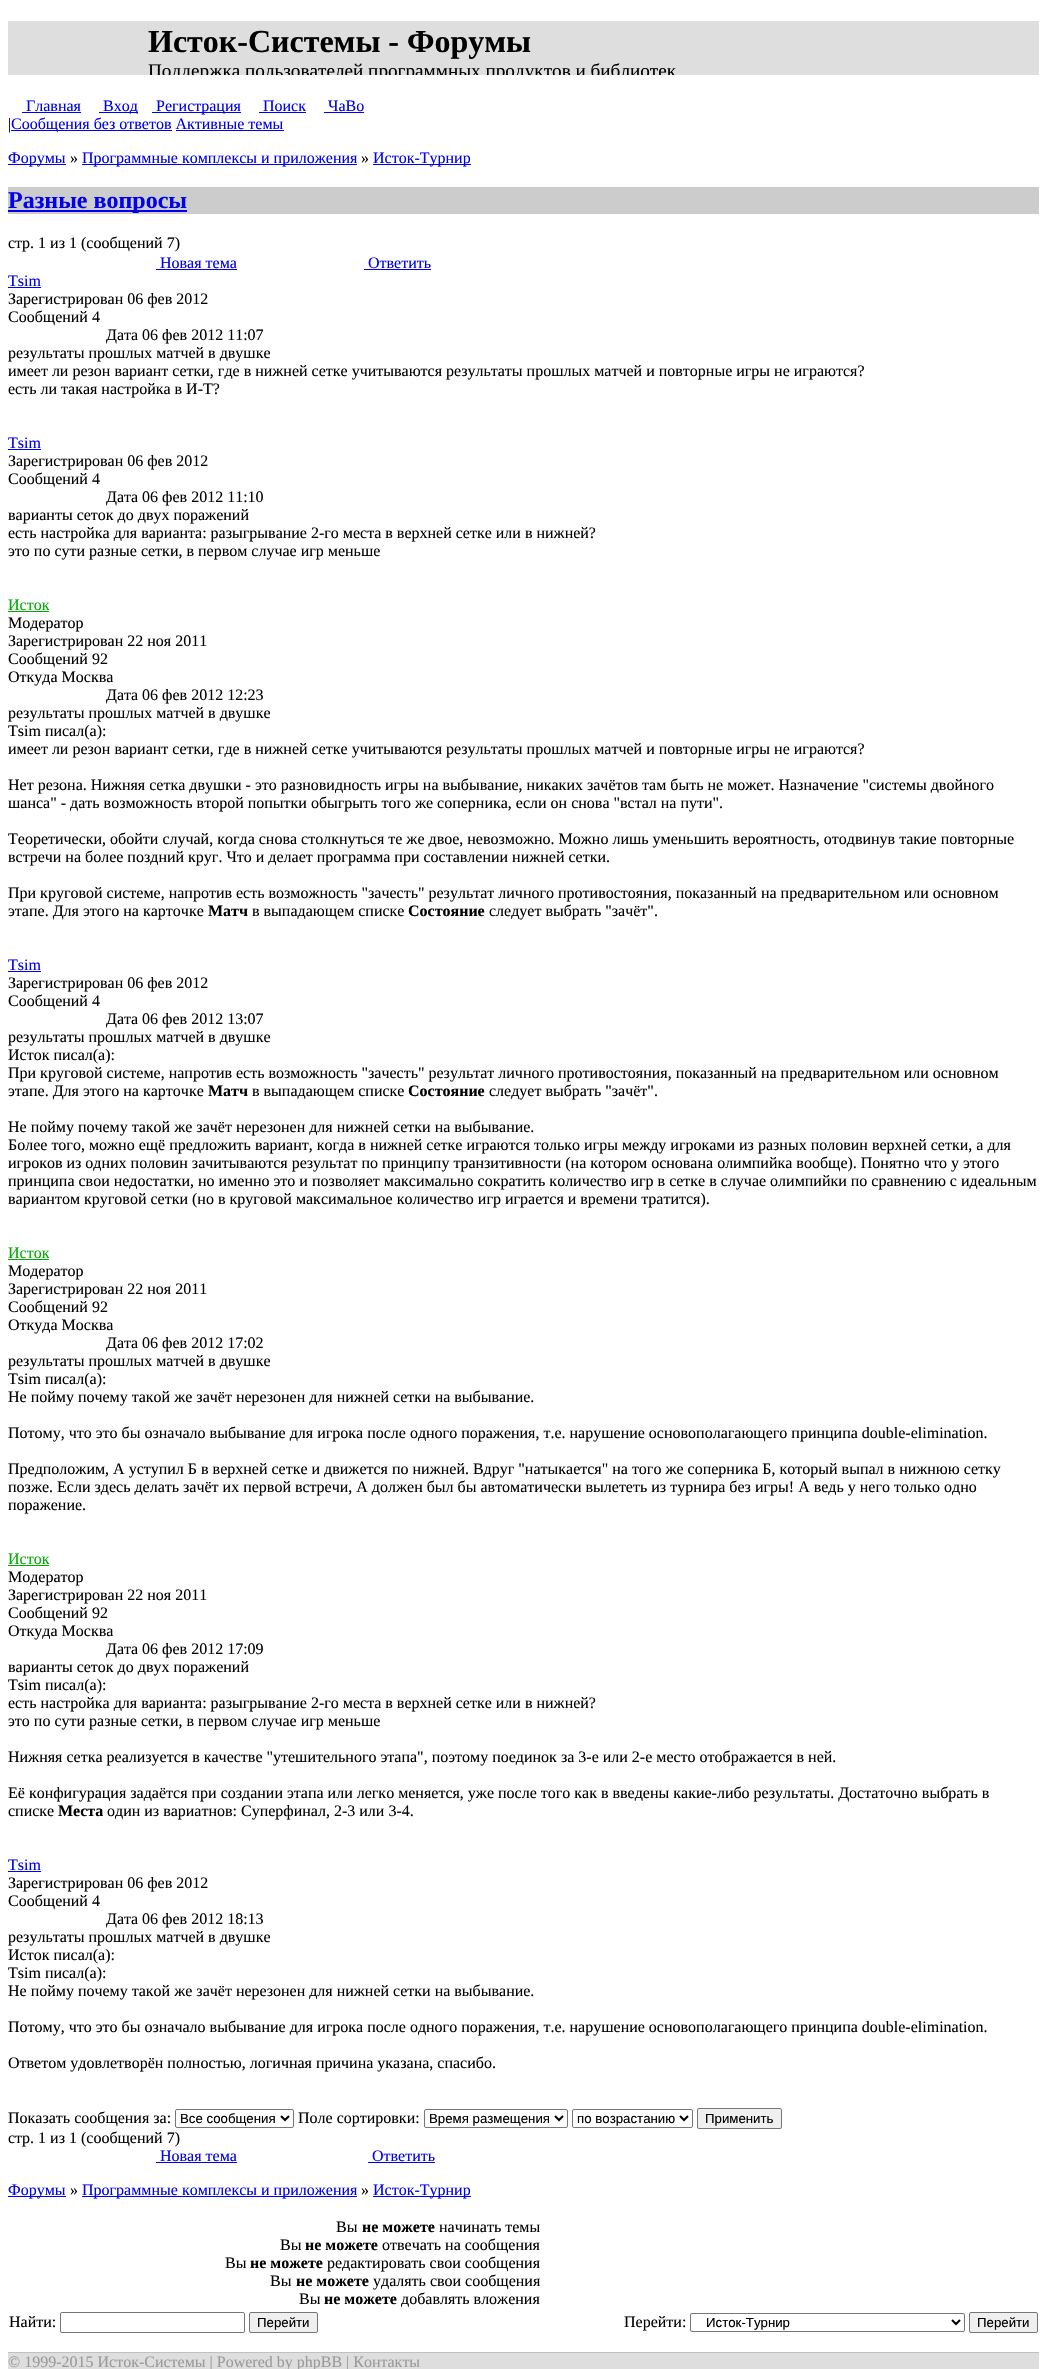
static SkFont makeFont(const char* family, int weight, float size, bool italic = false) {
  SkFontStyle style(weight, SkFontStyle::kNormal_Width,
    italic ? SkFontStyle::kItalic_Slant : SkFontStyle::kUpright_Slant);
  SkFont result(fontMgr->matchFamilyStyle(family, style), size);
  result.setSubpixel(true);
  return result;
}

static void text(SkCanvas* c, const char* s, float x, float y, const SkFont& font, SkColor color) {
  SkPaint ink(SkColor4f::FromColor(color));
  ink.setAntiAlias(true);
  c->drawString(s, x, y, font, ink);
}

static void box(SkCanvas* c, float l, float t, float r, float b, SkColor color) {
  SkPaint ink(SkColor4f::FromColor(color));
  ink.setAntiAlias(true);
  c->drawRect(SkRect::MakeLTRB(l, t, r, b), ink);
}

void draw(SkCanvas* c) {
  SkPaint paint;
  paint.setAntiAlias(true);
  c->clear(0xffffffff);
  box(c, 8, 21, 1039, 75, 0xffdedede);
  SkFont face1 = makeFont("Liberation Serif", 700, 32);
  text(c, "Исток-Системы - Форумы", 148, 52, face1, 0xff000000);
  c->save();
  c->clipRect(SkRect::MakeLTRB(8, 21, 1039, 75));
  SkFont face2 = makeFont("Liberation Serif", 400, 19.2f);
  text(c, "Поддержка пользователей программных продуктов и библиотек", 148, 77, face2, 0xff000000);
  c->restore();
  SkFont face3 = makeFont("Liberation Serif", 400, 16);
  text(c, "Главная", 26, 111, face3, 0xff0000ee);
  box(c, 22, 112, 81, 113, 0xff0000ee);
  box(c, 99, 112, 138, 113, 0xff0000ee);
  text(c, "Вход", 103, 111, face3, 0xff0000ee);
  box(c, 152, 112, 241, 113, 0xff0000ee);
  text(c, "Регистрация", 156, 111, face3, 0xff0000ee);
  text(c, "Поиск", 263, 111, face3, 0xff0000ee);
  box(c, 259, 112, 306, 113, 0xff0000ee);
  text(c, "ЧаВо", 328, 111, face3, 0xff0000ee);
  box(c, 324, 112, 364, 113, 0xff0000ee);
  text(c, "|", 8, 129, face3, 0xff000000);
  box(c, 11, 130, 172, 131, 0xff0000ee);
  text(c, "Сообщения без ответов Активные темы", 11, 129, face3, 0xff0000ee);
  box(c, 176, 130, 284, 131, 0xff0000ee);
  box(c, 8, 164, 66, 165, 0xff0000ee);
  text(c, "Форумы", 8, 163, face3, 0xff0000ee);
  text(c, "»", 70, 163, face3, 0xff000000);
  box(c, 82, 164, 357, 165, 0xff0000ee);
  text(c, "Программные комплексы и приложения", 82, 163, face3, 0xff0000ee);
  text(c, "»", 361, 163, face3, 0xff000000);
  box(c, 373, 164, 471, 165, 0xff0000ee);
  text(c, "Исток-Турнир", 373, 163, face3, 0xff0000ee);
  box(c, 8, 187, 1039, 214, 0xffcccccc);
  box(c, 8, 210, 187, 212, 0xff0000ee);
  SkFont face4 = makeFont("Liberation Serif", 700, 24);
  text(c, "Разные вопросы", 8, 208, face4, 0xff0000ee);
  text(c, "стр. 1 из 1 (сообщений 7)", 8, 248, face3, 0xff000000);
  text(c, "Новая тема", 160, 268, face3, 0xff0000ee);
  box(c, 156, 269, 237, 270, 0xff0000ee);
  text(c, "Ответить", 368, 268, face3, 0xff0000ee);
  box(c, 364, 269, 431, 270, 0xff0000ee);
  text(c, "Tsim", 8, 286, face3, 0xff0000ee);
  box(c, 8, 287, 41, 288, 0xff0000ee);
  text(c, "Зарегистрирован 06 фев 2012", 8, 304, face3, 0xff000000);
  text(c, "Сообщений 4", 8, 322, face3, 0xff000000);
  text(c, "Дата 06 фев 2012 11:07", 106, 340, face3, 0xff000000);
  text(c, "результаты прошлых матчей в двушке", 8, 358, face3, 0xff000000);
  text(c, "имеет ли резон вариант сетки, где в нижней сетке учитываются результаты прошлых матчей и повторные игры не играются?", 8, 376, face3, 0xff000000);
  text(c, "есть ли такая настройка в И-Т?", 8, 394, face3, 0xff000000);
  text(c, "Tsim", 8, 448, face3, 0xff0000ee);
  box(c, 8, 449, 41, 450, 0xff0000ee);
  text(c, "Зарегистрирован 06 фев 2012", 8, 466, face3, 0xff000000);
  text(c, "Сообщений 4", 8, 484, face3, 0xff000000);
  text(c, "Дата 06 фев 2012 11:10", 106, 502, face3, 0xff000000);
  text(c, "варианты сеток до двух поражений", 8, 520, face3, 0xff000000);
  text(c, "есть настройка для варианта: разыгрывание 2-го места в верхней сетке или в нижней?", 8, 538, face3, 0xff000000);
  text(c, "это по сути разные сетки, в первом случае игр меньше", 8, 556, face3, 0xff000000);
  text(c, "Исток", 8, 610, face3, 0xff00aa00);
  box(c, 8, 611, 49, 612, 0xff00aa00);
  text(c, "Модератор", 8, 628, face3, 0xff000000);
  text(c, "Зарегистрирован 22 ноя 2011", 8, 646, face3, 0xff000000);
  text(c, "Сообщений 92", 8, 664, face3, 0xff000000);
  text(c, "Откуда Москва", 8, 682, face3, 0xff000000);
  text(c, "Дата 06 фев 2012 12:23", 106, 700, face3, 0xff000000);
  text(c, "результаты прошлых матчей в двушке", 8, 718, face3, 0xff000000);
  text(c, "Tsim писал(а):", 8, 736, face3, 0xff000000);
  text(c, "имеет ли резон вариант сетки, где в нижней сетке учитываются результаты прошлых матчей и повторные игры не играются?", 8, 754, face3, 0xff000000);
  text(c, "Нет резона. Нижняя сетка двушки - это разновидность игры на выбывание, никаких зачётов там быть не может. Назначение \"системы двойного", 8, 790, face3, 0xff000000);
  text(c, "шанса\" - дать возможность второй попытки обыгрыть того же соперника, если он снова \"встал на пути\".", 8, 808, face3, 0xff000000);
  text(c, "Теоретически, обойти случай, когда снова столкнуться те же двое, невозможно. Можно лишь уменьшить вероятность, отодвинув такие повторные", 8, 844, face3, 0xff000000);
  text(c, "встречи на более поздний круг. Что и делает программа при составлении нижней сетки.", 8, 862, face3, 0xff000000);
  text(c, "При круговой системе, напротив есть возможность \"зачесть\" результат личного противостояния, показанный на предварительном или основном", 8, 898, face3, 0xff000000);
  text(c, "этапе. Для этого на карточке", 8, 916, face3, 0xff000000);
  SkFont face5 = makeFont("Liberation Serif", 700, 16);
  text(c, "Матч", 208, 916, face5, 0xff000000);
  text(c, "в выпадающем списке", 252, 916, face3, 0xff000000);
  text(c, "Состояние", 408, 916, face5, 0xff000000);
  text(c, "следует выбрать \"зачёт\".", 489, 916, face3, 0xff000000);
  text(c, "Tsim", 8, 970, face3, 0xff0000ee);
  box(c, 8, 971, 41, 972, 0xff0000ee);
  text(c, "Зарегистрирован 06 фев 2012", 8, 988, face3, 0xff000000);
  text(c, "Сообщений 4", 8, 1006, face3, 0xff000000);
  text(c, "Дата 06 фев 2012 13:07", 106, 1024, face3, 0xff000000);
  text(c, "результаты прошлых матчей в двушке", 8, 1042, face3, 0xff000000);
  text(c, "Исток писал(а):", 8, 1060, face3, 0xff000000);
  text(c, "При круговой системе, напротив есть возможность \"зачесть\" результат личного противостояния, показанный на предварительном или основном", 8, 1078, face3, 0xff000000);
  text(c, "этапе. Для этого на карточке", 8, 1096, face3, 0xff000000);
  text(c, "Матч", 208, 1096, face5, 0xff000000);
  text(c, "в выпадающем списке", 252, 1096, face3, 0xff000000);
  text(c, "Состояние", 408, 1096, face5, 0xff000000);
  text(c, "следует выбрать \"зачёт\".", 489, 1096, face3, 0xff000000);
  text(c, "Не пойму почему такой же зачёт нерезонен для нижней сетки на выбывание.", 8, 1132, face3, 0xff000000);
  text(c, "Более того, можно ещё предложить вариант, когда в нижней сетке играются только игры между игроками из разных половин верхней сетки, а для", 8, 1150, face3, 0xff000000);
  text(c, "игроков из одних половин зачитываются результат по принципу транзитивности (на котором основана олимпийка вообще). Понятно что у этого", 8, 1168, face3, 0xff000000);
  text(c, "принципа свои недостатки, но именно это и позволяет максимально сократить количество игр в сетке в случае олимпийки по сравнению с идеальным", 8, 1186, face3, 0xff000000);
  text(c, "вариантом круговой сетки (но в круговой максимальное количество игр играется и времени тратится).", 8, 1204, face3, 0xff000000);
  text(c, "Исток", 8, 1258, face3, 0xff00aa00);
  box(c, 8, 1259, 49, 1260, 0xff00aa00);
  text(c, "Модератор", 8, 1276, face3, 0xff000000);
  text(c, "Зарегистрирован 22 ноя 2011", 8, 1294, face3, 0xff000000);
  text(c, "Сообщений 92", 8, 1312, face3, 0xff000000);
  text(c, "Откуда Москва", 8, 1330, face3, 0xff000000);
  text(c, "Дата 06 фев 2012 17:02", 106, 1348, face3, 0xff000000);
  text(c, "результаты прошлых матчей в двушке", 8, 1366, face3, 0xff000000);
  text(c, "Tsim писал(а):", 8, 1384, face3, 0xff000000);
  text(c, "Не пойму почему такой же зачёт нерезонен для нижней сетки на выбывание.", 8, 1402, face3, 0xff000000);
  text(c, "Потому, что это бы означало выбывание для игрока после одного поражения, т.е. нарушение основополагающего принципа double-elimination.", 8, 1438, face3, 0xff000000);
  text(c, "Предположим, А уступил Б в верхней сетке и движется по нижней. Вдруг \"натыкается\" на того же соперника Б, который выпал в нижнюю сетку", 8, 1474, face3, 0xff000000);
  text(c, "позже. Если здесь делать зачёт их первой встречи, А должен был бы автоматически вылететь из турнира без игры! А ведь у него только одно", 8, 1492, face3, 0xff000000);
  text(c, "поражение.", 8, 1510, face3, 0xff000000);
  text(c, "Исток", 8, 1564, face3, 0xff00aa00);
  box(c, 8, 1565, 49, 1566, 0xff00aa00);
  text(c, "Модератор", 8, 1582, face3, 0xff000000);
  text(c, "Зарегистрирован 22 ноя 2011", 8, 1600, face3, 0xff000000);
  text(c, "Сообщений 92", 8, 1618, face3, 0xff000000);
  text(c, "Откуда Москва", 8, 1636, face3, 0xff000000);
  text(c, "Дата 06 фев 2012 17:09", 106, 1654, face3, 0xff000000);
  text(c, "варианты сеток до двух поражений", 8, 1672, face3, 0xff000000);
  text(c, "Tsim писал(а):", 8, 1690, face3, 0xff000000);
  text(c, "есть настройка для варианта: разыгрывание 2-го места в верхней сетке или в нижней?", 8, 1708, face3, 0xff000000);
  text(c, "это по сути разные сетки, в первом случае игр меньше", 8, 1726, face3, 0xff000000);
  text(c, "Нижняя сетка реализуется в качестве \"утешительного этапа\", поэтому поединок за 3-е или 2-е место отображается в ней.", 8, 1762, face3, 0xff000000);
  text(c, "Её конфигурация задаётся при создании этапа или легко меняется, уже после того как в введены какие-либо результаты. Достаточно выбрать в", 8, 1798, face3, 0xff000000);
  text(c, "списке", 8, 1816, face3, 0xff000000);
  text(c, "Места", 58, 1816, face5, 0xff000000);
  text(c, "один из вариатнов: Суперфинал, 2-3 или 3-4.", 107, 1816, face3, 0xff000000);
  text(c, "Tsim", 8, 1870, face3, 0xff0000ee);
  box(c, 8, 1871, 41, 1872, 0xff0000ee);
  text(c, "Зарегистрирован 06 фев 2012", 8, 1888, face3, 0xff000000);
  text(c, "Сообщений 4", 8, 1906, face3, 0xff000000);
  text(c, "Дата 06 фев 2012 18:13", 106, 1924, face3, 0xff000000);
  text(c, "результаты прошлых матчей в двушке", 8, 1942, face3, 0xff000000);
  text(c, "Исток писал(а):", 8, 1960, face3, 0xff000000);
  text(c, "Tsim писал(а):", 8, 1978, face3, 0xff000000);
  text(c, "Не пойму почему такой же зачёт нерезонен для нижней сетки на выбывание.", 8, 1996, face3, 0xff000000);
  text(c, "Потому, что это бы означало выбывание для игрока после одного поражения, т.е. нарушение основополагающего принципа double-elimination.", 8, 2032, face3, 0xff000000);
  text(c, "Ответом удовлетворён полностью, логичная причина указана, спасибо.", 8, 2068, face3, 0xff000000);
  text(c, "Показать сообщения за:", 8, 2123, face3, 0xff000000);
  paint.setStyle(SkPaint::kStroke_Style);
  paint.setStrokeWidth(1);
  paint.setColor(0xff767676);
  c->drawRoundRect(SkRect::MakeLTRB(175.5f, 2109.5f, 293.5f, 2127.5f), 1.5f, 1.5f, paint);
  paint.setStrokeWidth(2);
  paint.setColor(0xff000000);
  c->drawPath(SkPathBuilder().moveTo(281, 2116).lineTo(285, 2120).lineTo(289, 2116).detach(), paint);
  SkFont face6 = makeFont("Liberation Sans", 400, 13.25f);
  text(c, "Все сообщения", 180, 2123, face6, 0xff000000);
  text(c, "Поле сортировки:", 298, 2123, face3, 0xff000000);
  paint.setStrokeWidth(1);
  paint.setColor(0xff767676);
  c->drawRoundRect(SkRect::MakeLTRB(424.5f, 2109.5f, 567.5f, 2127.5f), 1.5f, 1.5f, paint);
  paint.setStrokeWidth(2);
  paint.setColor(0xff000000);
  c->drawPath(SkPathBuilder().moveTo(555, 2116).lineTo(559, 2120).lineTo(563, 2116).detach(), paint);
  text(c, "Время размещения", 429, 2123, face6, 0xff000000);
  paint.setStrokeWidth(1);
  paint.setColor(0xff767676);
  c->drawRoundRect(SkRect::MakeLTRB(572.5f, 2109.5f, 692.5f, 2127.5f), 1.5f, 1.5f, paint);
  paint.setStrokeWidth(2);
  paint.setColor(0xff000000);
  c->drawPath(SkPathBuilder().moveTo(680, 2116).lineTo(684, 2120).lineTo(688, 2116).detach(), paint);
  text(c, "по возрастанию", 577, 2123, face6, 0xff000000);
  paint.setStyle(SkPaint::kFill_Style);
  paint.setColor(0xffefefef);
  c->drawRoundRect(SkRect::MakeLTRB(697.5f, 2108.5f, 781.5f, 2128.5f), 1.5f, 1.5f, paint);
  paint.setStyle(SkPaint::kStroke_Style);
  paint.setStrokeWidth(1);
  paint.setColor(0xff767676);
  c->drawRoundRect(SkRect::MakeLTRB(697.5f, 2108.5f, 781.5f, 2128.5f), 1.5f, 1.5f, paint);
  text(c, "Применить", 705, 2123, face6, 0xff000000);
  text(c, "стр. 1 из 1 (сообщений 7)", 8, 2143, face3, 0xff000000);
  text(c, "Новая тема", 160, 2161, face3, 0xff0000ee);
  box(c, 156, 2162, 237, 2163, 0xff0000ee);
  text(c, "Ответить", 372, 2161, face3, 0xff0000ee);
  box(c, 368, 2162, 435, 2163, 0xff0000ee);
  box(c, 8, 2196, 66, 2197, 0xff0000ee);
  text(c, "Форумы", 8, 2195, face3, 0xff0000ee);
  text(c, "»", 70, 2195, face3, 0xff000000);
  box(c, 82, 2196, 357, 2197, 0xff0000ee);
  text(c, "Программные комплексы и приложения", 82, 2195, face3, 0xff0000ee);
  text(c, "»", 361, 2195, face3, 0xff000000);
  box(c, 373, 2196, 471, 2197, 0xff0000ee);
  text(c, "Исток-Турнир", 373, 2195, face3, 0xff0000ee);
  text(c, "Вы", 336, 2232, face3, 0xff000000);
  text(c, "не можете", 362, 2232, face5, 0xff000000);
  text(c, "начинать темы", 439, 2232, face3, 0xff000000);
  text(c, "Вы", 280, 2250, face3, 0xff000000);
  text(c, "не можете", 305, 2250, face5, 0xff000000);
  text(c, "отвечать на сообщения", 382, 2250, face3, 0xff000000);
  text(c, "Вы", 225, 2268, face3, 0xff000000);
  text(c, "не можете", 250, 2268, face5, 0xff000000);
  text(c, "редактировать свои сообщения", 327, 2268, face3, 0xff000000);
  text(c, "Вы", 270, 2286, face3, 0xff000000);
  text(c, "не можете", 296, 2286, face5, 0xff000000);
  text(c, "удалять свои сообщения", 373, 2286, face3, 0xff000000);
  text(c, "Вы", 299, 2304, face3, 0xff000000);
  text(c, "не можете", 324, 2304, face5, 0xff000000);
  text(c, "добавлять вложения", 401, 2304, face3, 0xff000000);
  text(c, "Найти:", 9, 2327, face3, 0xff000000);
  c->drawRoundRect(SkRect::MakeLTRB(60.5f, 2312.5f, 244.5f, 2332.5f), 1.5f, 1.5f, paint);
  paint.setStyle(SkPaint::kFill_Style);
  paint.setColor(0xffefefef);
  c->drawRoundRect(SkRect::MakeLTRB(249.5f, 2312.5f, 317.5f, 2332.5f), 1.5f, 1.5f, paint);
  paint.setStyle(SkPaint::kStroke_Style);
  paint.setColor(0xff767676);
  c->drawRoundRect(SkRect::MakeLTRB(249.5f, 2312.5f, 317.5f, 2332.5f), 1.5f, 1.5f, paint);
  text(c, "Перейти", 257, 2327, face6, 0xff000000);
  text(c, "Перейти:", 624, 2327, face3, 0xff000000);
  c->drawRoundRect(SkRect::MakeLTRB(690.5f, 2313.5f, 964.5f, 2331.5f), 1.5f, 1.5f, paint);
  paint.setStrokeWidth(2);
  paint.setColor(0xff000000);
  c->drawPath(SkPathBuilder().moveTo(952, 2320).lineTo(956, 2324).lineTo(960, 2320).detach(), paint);
  text(c, "Исток-Турнир", 706, 2327, face6, 0xff000000);
  paint.setStyle(SkPaint::kFill_Style);
  paint.setColor(0xffefefef);
  c->drawRoundRect(SkRect::MakeLTRB(969.5f, 2312.5f, 1037.5f, 2332.5f), 1.5f, 1.5f, paint);
  paint.setStyle(SkPaint::kStroke_Style);
  paint.setStrokeWidth(1);
  paint.setColor(0xff767676);
  c->drawRoundRect(SkRect::MakeLTRB(969.5f, 2312.5f, 1037.5f, 2332.5f), 1.5f, 1.5f, paint);
  text(c, "Перейти", 977, 2327, face6, 0xff000000);
  box(c, 8, 2353, 1039, 2369, 0xffdedede);
  box(c, 8, 2352, 1039, 2353, 0xffc0c0c0);
  text(c, "© 1999-2015 Исток-Системы | Powered by phpBB | Контакты", 8, 2367, face3, 0xff999999);
}
